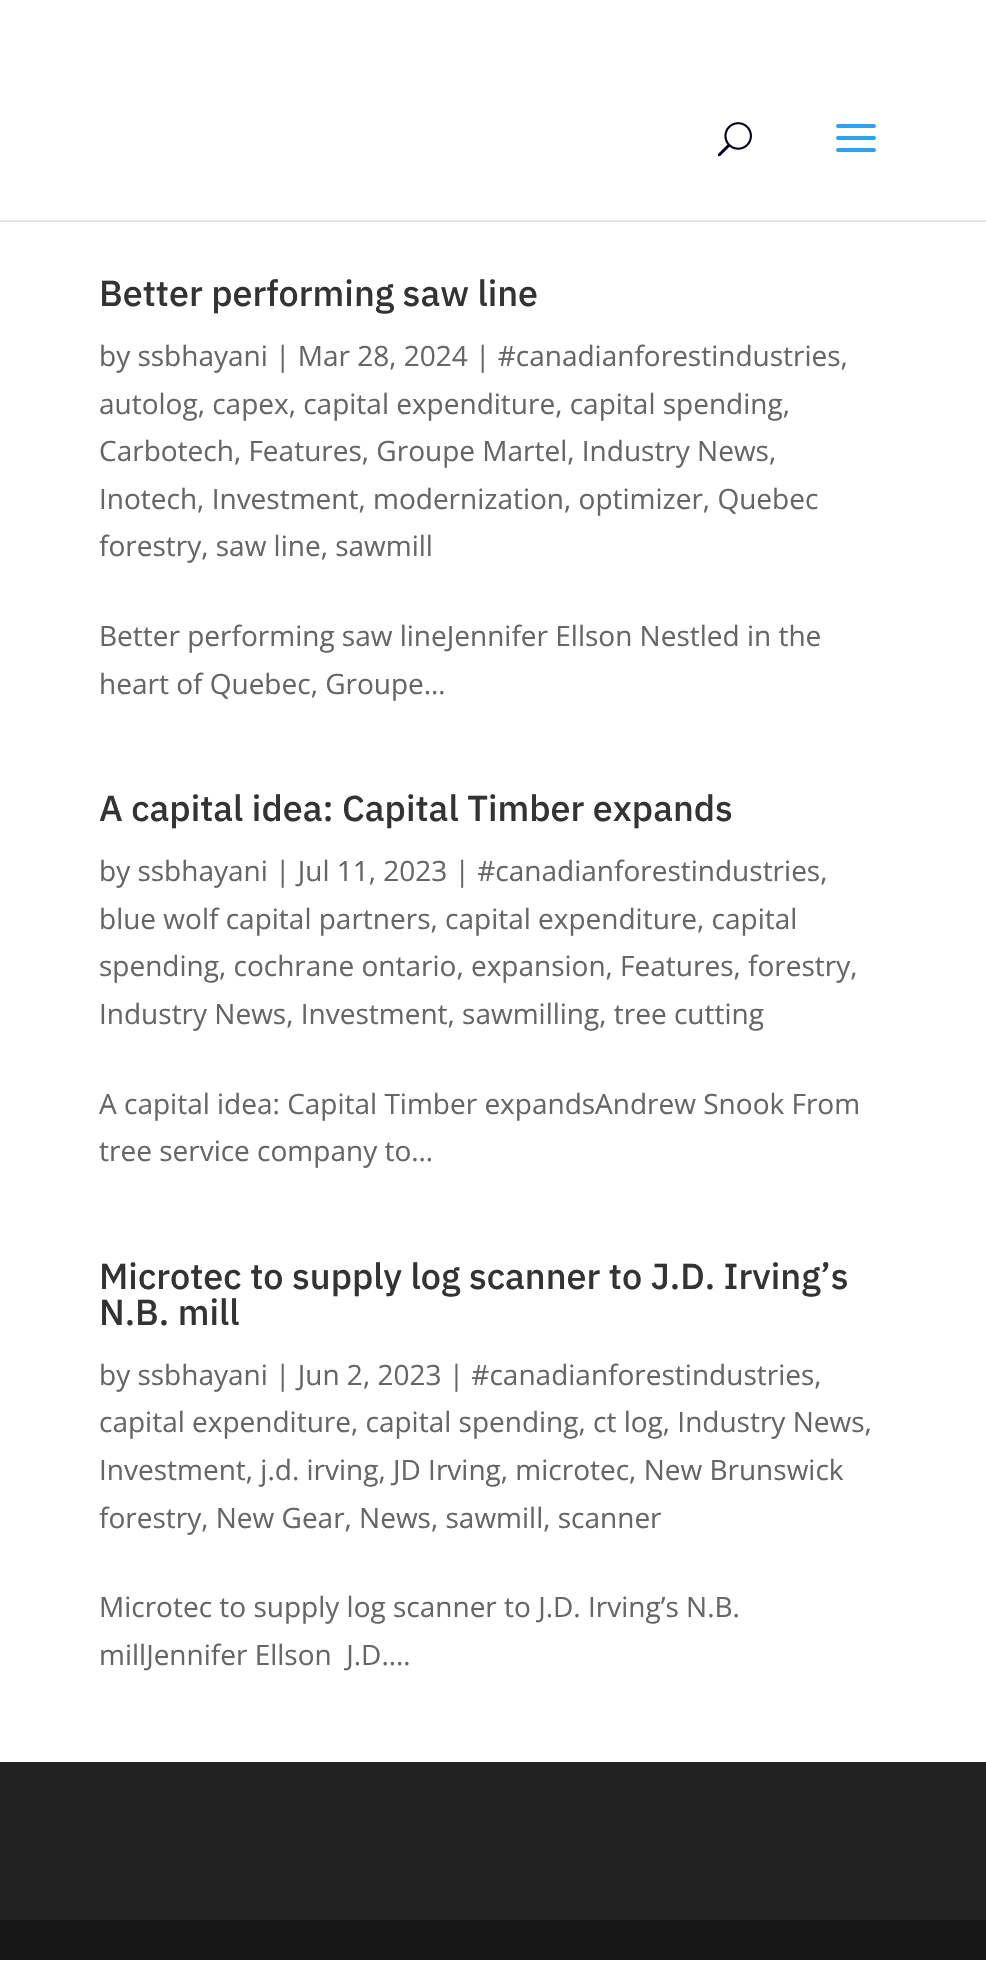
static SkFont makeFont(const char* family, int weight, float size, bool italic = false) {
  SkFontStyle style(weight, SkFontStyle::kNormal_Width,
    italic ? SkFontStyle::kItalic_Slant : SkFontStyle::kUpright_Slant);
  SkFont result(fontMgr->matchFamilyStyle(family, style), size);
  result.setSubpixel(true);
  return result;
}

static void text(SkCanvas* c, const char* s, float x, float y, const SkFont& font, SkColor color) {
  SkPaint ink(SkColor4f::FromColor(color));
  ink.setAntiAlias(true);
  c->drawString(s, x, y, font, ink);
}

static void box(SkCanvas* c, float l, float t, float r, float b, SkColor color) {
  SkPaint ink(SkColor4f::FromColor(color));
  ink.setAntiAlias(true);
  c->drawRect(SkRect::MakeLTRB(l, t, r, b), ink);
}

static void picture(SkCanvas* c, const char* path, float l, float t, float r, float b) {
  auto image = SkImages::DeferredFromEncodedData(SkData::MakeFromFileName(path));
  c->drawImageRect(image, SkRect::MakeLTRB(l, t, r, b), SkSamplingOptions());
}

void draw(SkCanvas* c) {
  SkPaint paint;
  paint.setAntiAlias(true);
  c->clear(0xffffffff);
  box(c, 0, 220, 986, 222, 0xffe6e6e6);
  picture(c, "img_01.png", 717, 122, 752, 157);
  picture(c, "img_02.png", 836, 124, 876, 152);
  SkFont face1 = makeFont("IBM Plex Sans", 500, 36);
  text(c, "Better performing saw line", 99, 306, face1, 0xff333333);
  SkFont face2 = makeFont("Open Sans", 400, 28);
  text(c, "by ssbhayani | Mar 28, 2024 | #canadianforestindustries,", 99, 366, face2, 0xff666666);
  text(c, "autolog, capex, capital expenditure, capital spending,", 99, 414, face2, 0xff666666);
  text(c, "Carbotech, Features, Groupe Martel, Industry News,", 99, 461, face2, 0xff666666);
  text(c, "Inotech, Investment, modernization, optimizer, Quebec", 99, 509, face2, 0xff666666);
  text(c, "forestry, saw line, sawmill", 99, 556, face2, 0xff666666);
  text(c, "Better performing saw lineJennifer Ellson Nestled in the", 99, 646, face2, 0xff666666);
  text(c, "heart of Quebec, Groupe…", 99, 694, face2, 0xff666666);
  text(c, "A capital idea: Capital Timber expands", 99, 821, face1, 0xff333333);
  text(c, "by ssbhayani | Jul 11, 2023 | #canadianforestindustries,", 99, 881, face2, 0xff666666);
  text(c, "blue wolf capital partners, capital expenditure, capital", 99, 929, face2, 0xff666666);
  text(c, "spending, cochrane ontario, expansion, Features, forestry,", 99, 976, face2, 0xff666666);
  text(c, "Industry News, Investment, sawmilling, tree cutting", 99, 1024, face2, 0xff666666);
  text(c, "A capital idea: Capital Timber expandsAndrew Snook From", 99, 1114, face2, 0xff666666);
  text(c, "tree service company to…", 99, 1161, face2, 0xff666666);
  text(c, "Microtec to supply log scanner to J.D. Irving’s", 99, 1289, face1, 0xff333333);
  text(c, "N.B. mill", 99, 1325, face1, 0xff333333);
  text(c, "by ssbhayani | Jun 2, 2023 | #canadianforestindustries,", 99, 1385, face2, 0xff666666);
  text(c, "capital expenditure, capital spending, ct log, Industry News,", 99, 1432, face2, 0xff666666);
  text(c, "Investment, j.d. irving, JD Irving, microtec, New Brunswick", 99, 1480, face2, 0xff666666);
  text(c, "forestry, New Gear, News, sawmill, scanner", 99, 1528, face2, 0xff666666);
  text(c, "Microtec to supply log scanner to J.D. Irving’s N.B.", 99, 1617, face2, 0xff666666);
  text(c, "millJennifer Ellson  J.D.…", 99, 1665, face2, 0xff666666);
  box(c, 0, 1762, 986, 1920, 0xff222222);
  box(c, 0, 1920, 986, 1960, 0xff171717);
}
